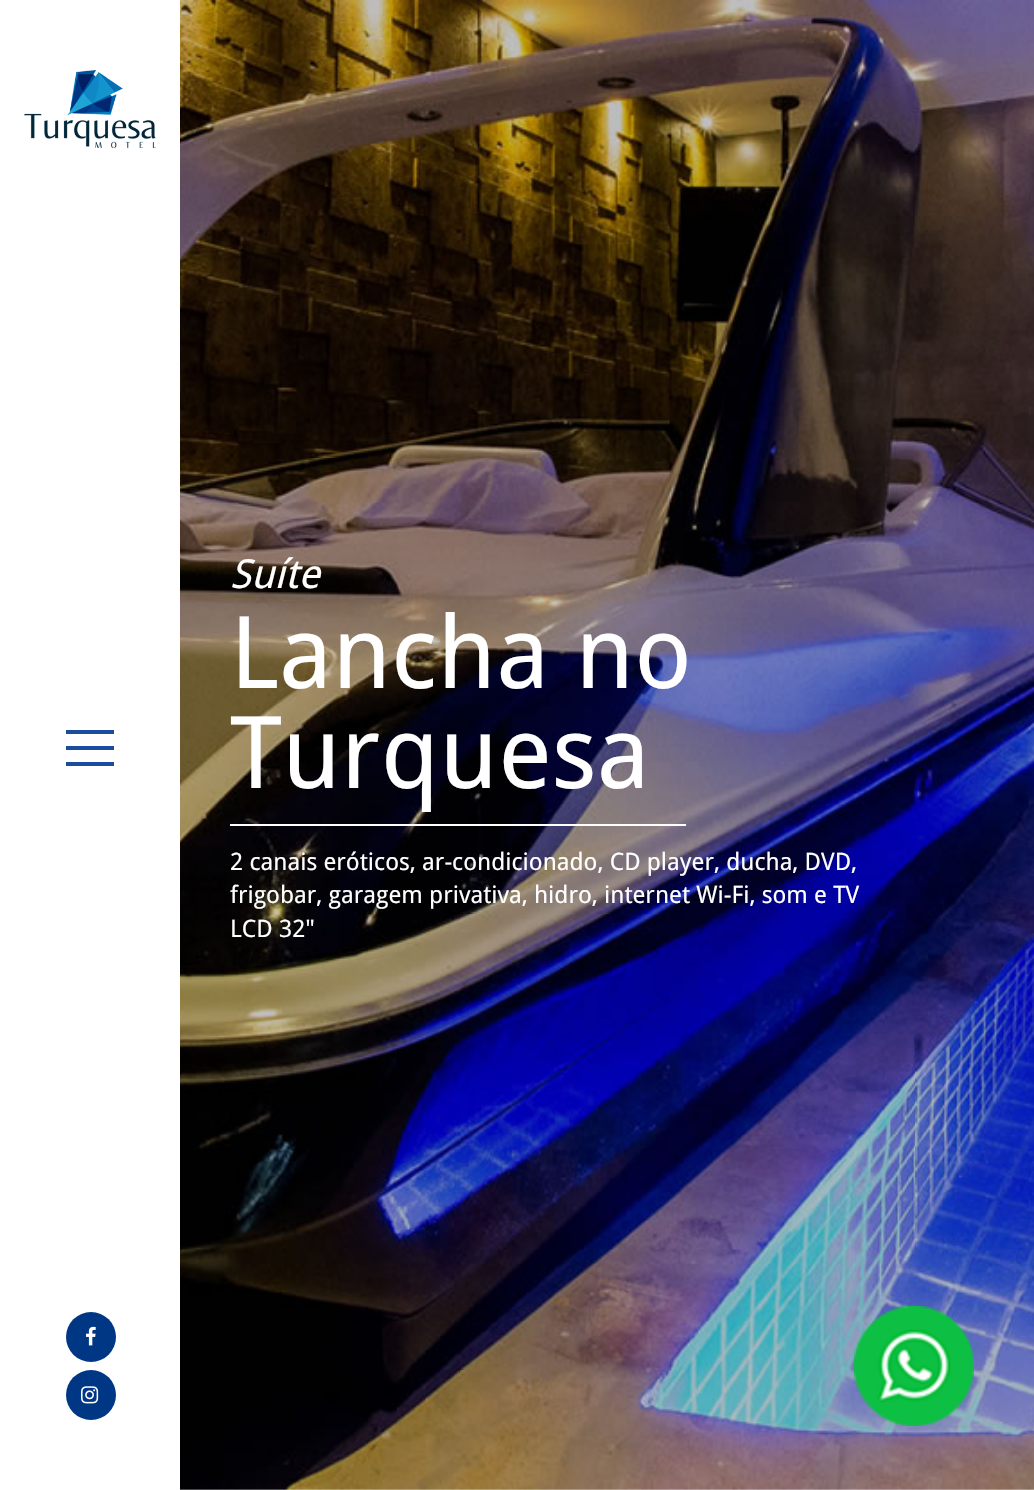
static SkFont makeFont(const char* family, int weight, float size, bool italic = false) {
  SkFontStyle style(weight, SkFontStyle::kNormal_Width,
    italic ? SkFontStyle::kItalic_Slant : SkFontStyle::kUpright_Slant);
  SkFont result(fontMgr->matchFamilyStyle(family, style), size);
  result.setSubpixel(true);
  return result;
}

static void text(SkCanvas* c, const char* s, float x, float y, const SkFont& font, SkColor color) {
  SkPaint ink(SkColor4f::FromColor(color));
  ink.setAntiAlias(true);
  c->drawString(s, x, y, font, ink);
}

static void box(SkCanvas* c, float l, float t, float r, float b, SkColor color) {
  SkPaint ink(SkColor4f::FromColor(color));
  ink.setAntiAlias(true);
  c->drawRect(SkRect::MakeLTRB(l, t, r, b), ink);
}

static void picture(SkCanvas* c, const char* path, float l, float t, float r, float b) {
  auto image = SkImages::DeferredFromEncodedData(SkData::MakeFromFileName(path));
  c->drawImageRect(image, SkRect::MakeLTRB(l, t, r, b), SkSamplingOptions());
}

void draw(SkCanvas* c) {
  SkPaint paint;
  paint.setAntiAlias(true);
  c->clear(0xffffffff);
  picture(c, "img_01.png", 24, 70, 156, 148);
  box(c, 66, 746, 114, 750, 0xff1b4c9f);
  box(c, 66, 730, 114, 734, 0xff1b4c9f);
  box(c, 66, 762, 114, 766, 0xff1b4c9f);
  paint.setColor(0xff003785);
  c->drawCircle(91, 1337, 25, paint);
  picture(c, "img_02.png", 86, 1326, 96, 1346);
  c->drawCircle(91, 1395, 25, paint);
  picture(c, "img_03.png", 81, 1386, 99, 1404);
  picture(c, "img_04.png", 180, 0, 1034, 1490);
  SkFont face1 = makeFont("Droid Sans", 400, 40, true);
  text(c, "Suíte", 230, 588, face1, 0xffffffff);
  SkFont face2 = makeFont("Droid Sans", 400, 100);
  text(c, "Lancha no", 230, 688, face2, 0xffffffff);
  text(c, "Turquesa", 230, 788, face2, 0xffffffff);
  box(c, 230, 824, 686, 826, 0xffffffff);
  SkFont face3 = makeFont("Droid Sans", 400, 24);
  text(c, "2 canais eróticos, ar-condicionado, CD player, ducha, DVD,", 230, 870, face3, 0xffffffff);
  text(c, "frigobar, garagem privativa, hidro, internet Wi-Fi, som e TV", 230, 903, face3, 0xffffffff);
  text(c, "LCD 32\"", 230, 937, face3, 0xffffffff);
  picture(c, "img_05.png", 854, 1306, 974, 1426);
}
